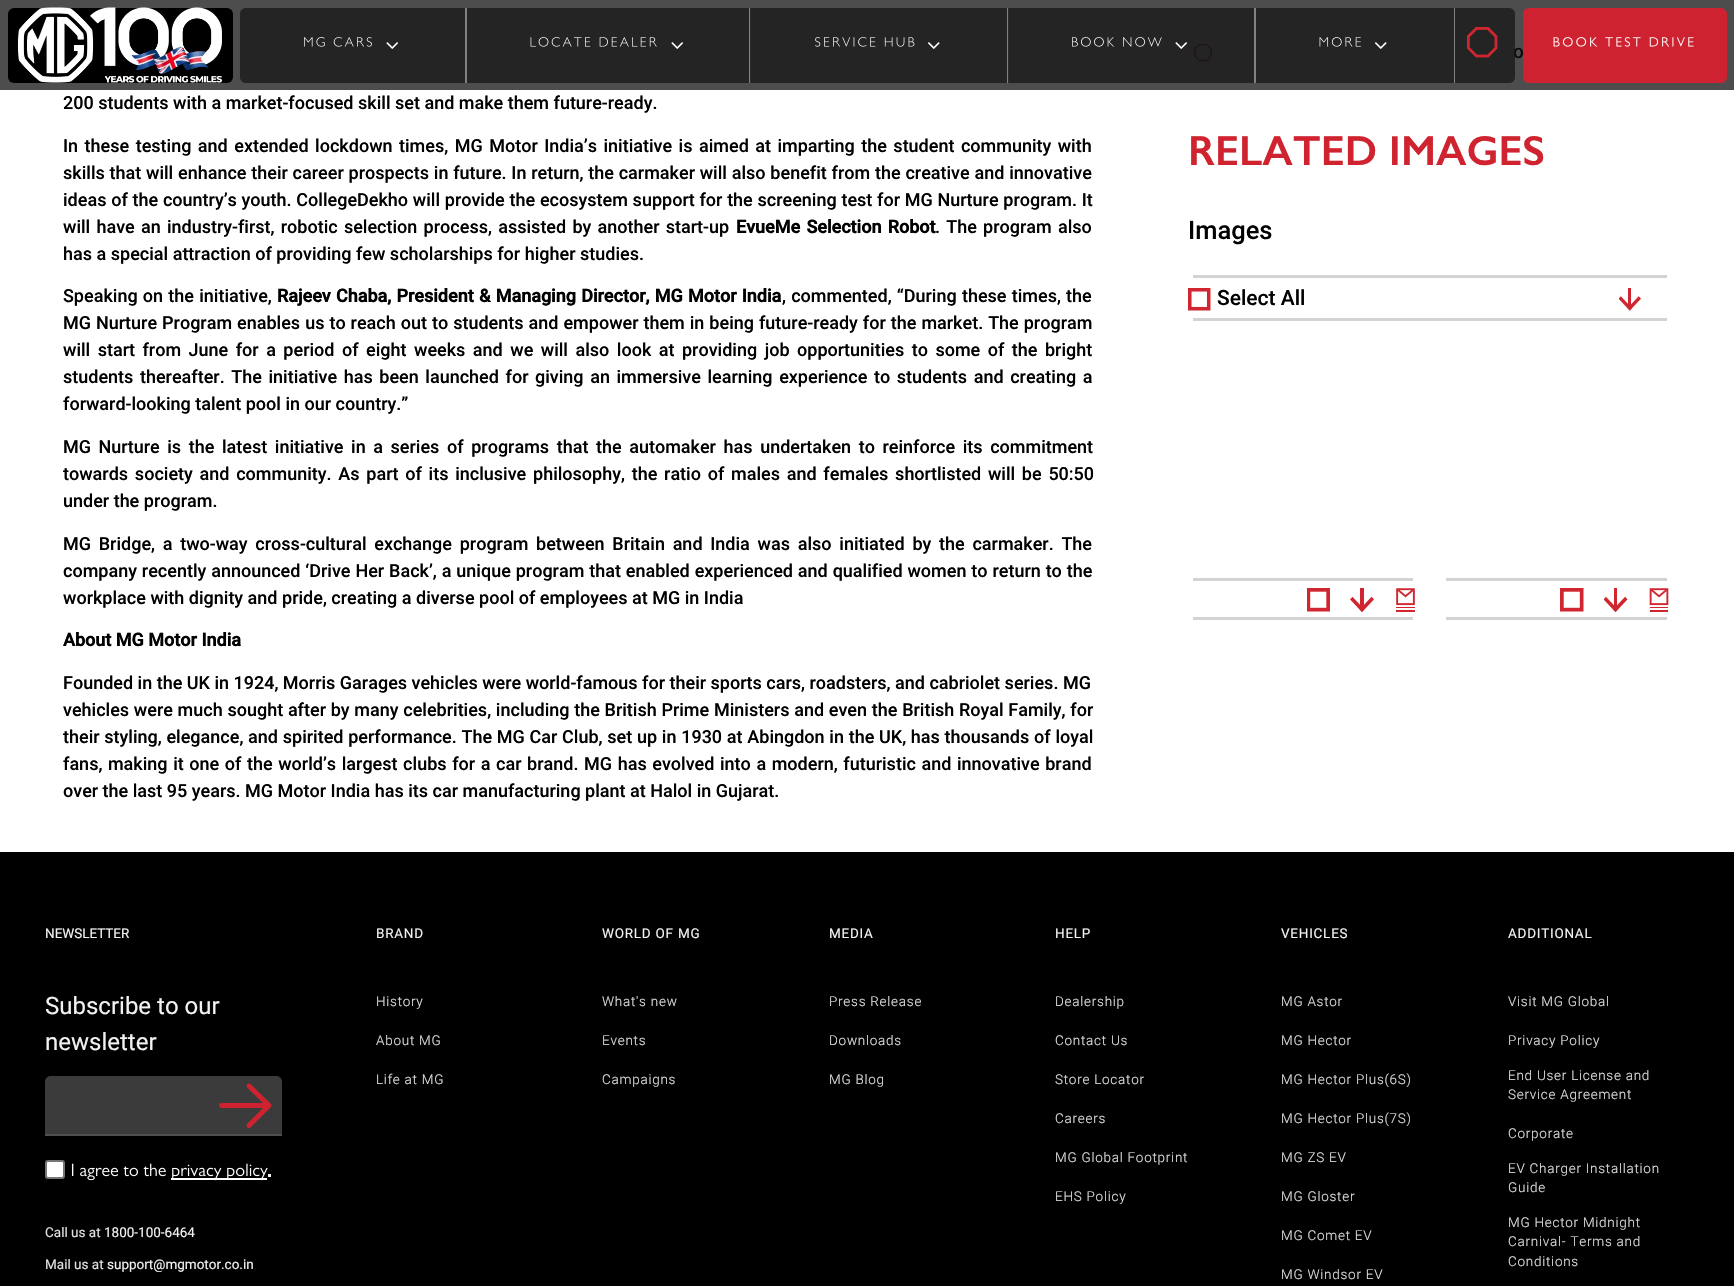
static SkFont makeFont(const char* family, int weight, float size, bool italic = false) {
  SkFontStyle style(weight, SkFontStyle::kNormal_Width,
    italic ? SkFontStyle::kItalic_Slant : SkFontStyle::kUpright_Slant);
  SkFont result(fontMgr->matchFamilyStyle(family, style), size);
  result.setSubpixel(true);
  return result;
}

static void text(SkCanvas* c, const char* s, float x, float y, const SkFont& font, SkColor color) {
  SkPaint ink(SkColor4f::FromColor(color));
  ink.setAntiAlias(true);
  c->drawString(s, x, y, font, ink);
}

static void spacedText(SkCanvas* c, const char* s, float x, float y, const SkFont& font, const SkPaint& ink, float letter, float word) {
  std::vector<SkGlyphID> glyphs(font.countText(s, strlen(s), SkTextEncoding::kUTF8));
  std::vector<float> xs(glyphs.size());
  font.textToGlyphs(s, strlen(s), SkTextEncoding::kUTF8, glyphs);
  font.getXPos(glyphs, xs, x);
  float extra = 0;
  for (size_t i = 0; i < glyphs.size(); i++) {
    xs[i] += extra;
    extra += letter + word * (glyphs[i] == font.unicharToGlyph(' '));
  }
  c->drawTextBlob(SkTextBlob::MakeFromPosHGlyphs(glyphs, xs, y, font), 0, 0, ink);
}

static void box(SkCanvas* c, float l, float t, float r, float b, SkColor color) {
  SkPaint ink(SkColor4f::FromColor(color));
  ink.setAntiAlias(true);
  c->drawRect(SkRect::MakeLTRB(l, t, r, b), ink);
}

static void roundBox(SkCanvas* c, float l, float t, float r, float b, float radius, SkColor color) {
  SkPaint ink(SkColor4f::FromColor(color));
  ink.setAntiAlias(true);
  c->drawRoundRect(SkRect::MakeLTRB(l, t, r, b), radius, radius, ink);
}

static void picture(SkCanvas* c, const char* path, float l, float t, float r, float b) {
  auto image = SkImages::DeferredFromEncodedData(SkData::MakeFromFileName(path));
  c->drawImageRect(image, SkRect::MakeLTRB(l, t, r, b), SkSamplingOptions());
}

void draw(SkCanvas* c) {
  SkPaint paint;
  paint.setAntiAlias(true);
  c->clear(0xffffffff);
  box(c, 0, 0, 1734, 90, 0xff4d4d4d);
  roundBox(c, 8, 8, 233, 83, 6, 0xff000000);
  picture(c, "img_01.png", 17, 7, 222, 83);
  box(c, 465, 8, 467, 83, 0x4affffff);
  paint.setColor(0xcc191919);
  c->drawPath(SkPathBuilder().moveTo(246, 8).lineTo(465, 8).lineTo(465, 83).lineTo(246, 83).cubicTo(242.5f, 83, 240, 80.5f, 240, 77).lineTo(240, 14).cubicTo(240, 10.5f, 242.5f, 8, 246, 8).close().detach(), paint);
  picture(c, "img_02.png", 304, 37, 372, 47);
  picture(c, "img_03.png", 386, 42, 398, 49);
  box(c, 749, 8, 751, 83, 0x4affffff);
  box(c, 467, 8, 749, 83, 0xcc191919);
  picture(c, "img_04.png", 530, 37, 657, 47);
  picture(c, "img_05.png", 671, 42, 683, 49);
  box(c, 1007, 8, 1009, 83, 0x4affffff);
  box(c, 750, 8, 1007, 83, 0xcc191919);
  picture(c, "img_06.png", 815, 37, 915, 47);
  picture(c, "img_07.png", 928, 42, 940, 49);
  box(c, 1254, 8, 1256, 83, 0x4affffff);
  picture(c, "img_14.png", 1194, 44, 1212, 62);
  box(c, 1008, 8, 1254, 83, 0xcc191919);
  picture(c, "img_08.png", 1072, 37, 1162, 47);
  picture(c, "img_09.png", 1175, 42, 1187, 49);
  box(c, 1454, 8, 1455, 83, 0x4affffff);
  box(c, 1256, 8, 1454, 83, 0xcc191919);
  picture(c, "img_10.png", 1319, 37, 1361, 47);
  picture(c, "img_11.png", 1375, 42, 1387, 49);
  SkFont face1 = makeFont("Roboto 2", 500, 19);
  text(c, "o", 1513, 58, face1, 0xff0a0b0c);
  c->drawPath(SkPathBuilder().moveTo(1455, 8).lineTo(1509, 8).cubicTo(1512.5f, 8, 1515, 10.5f, 1515, 14).lineTo(1515, 77).cubicTo(1515, 80.5f, 1512.5f, 83, 1509, 83).lineTo(1455, 83).close().detach(), paint);
  picture(c, "img_12.png", 1467, 27, 1498, 58);
  roundBox(c, 1523, 8, 1727, 83, 6, 0xffcf2230);
  picture(c, "img_13.png", 1553, 37, 1694, 47);
  SkFont face2 = makeFont("Roboto", 500, 18);
  text(c, "200 students with a market-focused skill set and make them future-ready.", 63, 109, face2, 0xff000000);
  paint.setColor(0xff000000);
  spacedText(c, "In these testing and extended lockdown times, MG Motor India’s initiative is aimed at imparting the student community with", 63, 152, face2, paint, 0, 2);
  spacedText(c, "skills that will enhance their career prospects in future. In return, the carmaker will also benefit from the creative and innovative", 63, 179, face2, paint, 0, 0.3f);
  spacedText(c, "ideas of the country’s youth. CollegeDekho will provide the ecosystem support for the screening test for MG Nurture program. It", 63, 206, face2, paint, 0, 0.25f);
  spacedText(c, "will have an industry-first, robotic selection process, assisted by another start-up", 63, 233, face2, paint, 0, 1.75f);
  SkFont face3 = makeFont("Roboto", 700, 18);
  spacedText(c, "EvueMe Selection Robot", 736, 233, face3, paint, 0, 1.75f);
  spacedText(c, ". The program also", 935, 233, face2, paint, 0, 1.75f);
  text(c, "has a special attraction of providing few scholarships for higher studies.", 63, 260, face2, 0xff000000);
  spacedText(c, "Speaking on the initiative,", 63, 302, face2, paint, 0, 0.75f);
  spacedText(c, "Rajeev Chaba, President & Managing Director, MG Motor India", 277, 302, face3, paint, 0, 0.75f);
  spacedText(c, ", commented, “During these times, the", 782, 302, face2, paint, 0, 0.75f);
  spacedText(c, "MG Nurture Program enables us to reach out to students and empower them in being future-ready for the market. The program", 63, 329, face2, paint, 0, 0.5f);
  spacedText(c, "will start from June for a period of eight weeks and we will also look at providing job opportunities to some of the bright", 63, 356, face2, paint, 0, 3);
  spacedText(c, "students thereafter. The initiative has been launched for giving an immersive learning experience to students and creating a", 63, 383, face2, paint, 0, 2.1f);
  text(c, "forward-looking talent pool in our country.”", 63, 410, face2, 0xff000000);
  spacedText(c, "MG Nurture is the latest initiative in a series of programs that the automaker has undertaken to reinforce its commitment", 63, 453, face2, paint, 0, 3.1f);
  spacedText(c, "towards society and community. As part of its inclusive philosophy, the ratio of males and females shortlisted will be 50:50", 63, 480, face2, paint, 0, 2.25f);
  text(c, "under the program.", 63, 507, face2, 0xff000000);
  spacedText(c, "MG Bridge, a two-way cross-cultural exchange program between Britain and India was also initiated by the carmaker. The", 63, 550, face2, paint, 0, 3.25f);
  spacedText(c, "company recently announced ‘Drive Her Back’, a unique program that enabled experienced and qualified women to return to the", 63, 577, face2, paint, 0, 0.4f);
  text(c, "workplace with dignity and pride, creating a diverse pool of employees at MG in India", 63, 604, face2, 0xff000000);
  text(c, "About MG Motor India", 63, 646, face3, 0xff000000);
  text(c, "Founded in the UK in 1924, Morris Garages vehicles were world-famous for their sports cars, roadsters, and cabriolet series. MG", 63, 689, face2, 0xff000000);
  spacedText(c, "vehicles were much sought after by many celebrities, including the British Prime Ministers and even the British Royal Family, for", 63, 716, face2, paint, 0, 0.25f);
  spacedText(c, "their styling, elegance, and spirited performance. The MG Car Club, set up in 1930 at Abingdon in the UK, has thousands of loyal", 63, 743, face2, paint, 0, 0.25f);
  spacedText(c, "fans, making it one of the world’s largest clubs for a car brand. MG has evolved into a modern, futuristic and innovative brand", 63, 770, face2, paint, 0, 1.1f);
  text(c, "over the last 95 years. MG Motor India has its car manufacturing plant at Halol in Gujarat.", 63, 797, face2, 0xff000000);
  SkFont face4 = makeFont("Gill Sans", 600, 42);
  text(c, "RELATED IMAGES", 1188, 165, face4, 0xffcf242f);
  SkFont face5 = makeFont("Roboto", 500, 25.5f);
  text(c, "Images", 1188, 239, face5, 0xff000000);
  box(c, 1193, 275, 1667, 278, 0xffd3d3d3);
  picture(c, "img_15.png", 1188, 288, 1211, 311);
  SkFont face6 = makeFont("Roboto", 500, 21);
  text(c, "Select All", 1217, 305, face6, 0xff000000);
  picture(c, "img_16.png", 1619, 288, 1641, 311);
  box(c, 1193, 318, 1667, 321, 0xffd3d3d3);
  box(c, 1193, 578, 1413, 581, 0xffd3d3d3);
  picture(c, "img_17.png", 1307, 588, 1330, 612);
  picture(c, "img_18.png", 1350, 588, 1374, 612);
  picture(c, "img_19.png", 1396, 588, 1415, 612);
  box(c, 1193, 617, 1413, 620, 0xffd3d3d3);
  box(c, 1446, 578, 1667, 581, 0xffd3d3d3);
  picture(c, "img_20.png", 1560, 588, 1584, 612);
  picture(c, "img_21.png", 1604, 588, 1628, 612);
  picture(c, "img_22.png", 1649, 588, 1669, 612);
  box(c, 1446, 617, 1667, 620, 0xffd3d3d3);
  box(c, 0, 852, 1734, 1286, 0xff000000);
  SkFont face7 = makeFont("Roboto", 400, 13.5f);
  text(c, "NEWSLETTER", 45, 938, face7, 0xfff2f2f2);
  SkFont face8 = makeFont("Roboto", 400, 24);
  text(c, "Subscribe to our", 45, 1014, face8, 0xfff2f2f2);
  text(c, "newsletter", 45, 1050, face8, 0xfff2f2f2);
  paint.setColor(0xff3b3b3b);
  c->drawPath(SkPathBuilder().moveTo(51, 1076).lineTo(276, 1076).cubicTo(279.5f, 1076, 282, 1078.5f, 282, 1082).lineTo(282, 1136).lineTo(45, 1136).lineTo(45, 1082).cubicTo(45, 1078.5f, 47.5f, 1076, 51, 1076).close().detach(), paint);
  box(c, 45, 1134, 282, 1136, 0xff4f4f4f);
  paint.setStyle(SkPaint::kStroke_Style);
  paint.setStrokeWidth(4.9f);
  paint.setStrokeCap(SkPaint::kRound_Cap);
  paint.setStrokeJoin(SkPaint::kRound_Join);
  paint.setColor(0xffcf2230);
  c->drawPath(SkPathBuilder().moveTo(249, 1125.5f).lineTo(269, 1105.5f).moveTo(269, 1105.5f).lineTo(249, 1086).moveTo(269, 1105.5f).lineTo(221.5f, 1105.5f).detach(), paint);
  paint.setStyle(SkPaint::kFill_Style);
  paint.setColor(0xffffffff);
  c->drawRoundRect(SkRect::MakeLTRB(46, 1161, 64, 1178), 2, 2, paint);
  paint.setStyle(SkPaint::kStroke_Style);
  paint.setStrokeWidth(2);
  paint.setStrokeCap(SkPaint::kButt_Cap);
  paint.setStrokeJoin(SkPaint::kMiter_Join);
  paint.setColor(0xff767676);
  c->drawRoundRect(SkRect::MakeLTRB(46, 1161, 64, 1178), 2, 2, paint);
  picture(c, "img_23.png", 71, 1163, 166, 1181);
  box(c, 171, 1178, 267, 1180, 0xffffffff);
  picture(c, "img_24.png", 172, 1163, 268, 1181);
  box(c, 268, 1174, 271, 1177, 0xfff2f2f2);
  text(c, "Call us at", 45, 1237, face7, 0xffe1e1e1);
  text(c, "1800-100-6464", 104, 1237, face7, 0xfff2f2f2);
  text(c, "Mail us at", 45, 1269, face7, 0xffe1e1e1);
  text(c, "support@mgmotor.co.in", 107, 1269, face7, 0xfff2f2f2);
  paint.setStyle(SkPaint::kFill_Style);
  paint.setColor(0xfff2f2f2);
  spacedText(c, "BRAND", 376, 938, face7, paint, 0.75f, 0);
  SkFont face9 = makeFont("Roboto", 300, 13.5f);
  paint.setColor(0xffe1e1e1);
  spacedText(c, "History", 376, 1006, face9, paint, 0.75f, 0);
  spacedText(c, "About MG", 376, 1045, face9, paint, 0.75f, 0);
  spacedText(c, "Life at MG", 376, 1084, face9, paint, 0.75f, 0);
  paint.setColor(0xfff2f2f2);
  spacedText(c, "WORLD OF MG", 602, 938, face7, paint, 0.75f, 0);
  paint.setColor(0xffe1e1e1);
  spacedText(c, "What's new", 602, 1006, face9, paint, 0.75f, 0);
  spacedText(c, "Events", 602, 1045, face9, paint, 0.75f, 0);
  spacedText(c, "Campaigns", 602, 1084, face9, paint, 0.75f, 0);
  paint.setColor(0xfff2f2f2);
  spacedText(c, "MEDIA", 829, 938, face7, paint, 0.75f, 0);
  paint.setColor(0xffe1e1e1);
  spacedText(c, "Press Release", 829, 1006, face9, paint, 0.75f, 0);
  spacedText(c, "Downloads", 829, 1045, face9, paint, 0.75f, 0);
  spacedText(c, "MG Blog", 829, 1084, face9, paint, 0.75f, 0);
  paint.setColor(0xfff2f2f2);
  spacedText(c, "HELP", 1055, 938, face7, paint, 0.75f, 0);
  paint.setColor(0xffe1e1e1);
  spacedText(c, "Dealership", 1055, 1006, face9, paint, 0.75f, 0);
  spacedText(c, "Contact Us", 1055, 1045, face9, paint, 0.75f, 0);
  spacedText(c, "Store Locator", 1055, 1084, face9, paint, 0.75f, 0);
  spacedText(c, "Careers", 1055, 1123, face9, paint, 0.75f, 0);
  spacedText(c, "MG Global Footprint", 1055, 1162, face9, paint, 0.75f, 0);
  spacedText(c, "EHS Policy", 1055, 1201, face9, paint, 0.75f, 0);
  paint.setColor(0xfff2f2f2);
  spacedText(c, "VEHICLES", 1281, 938, face7, paint, 0.75f, 0);
  paint.setColor(0xffe1e1e1);
  spacedText(c, "MG Astor", 1281, 1006, face9, paint, 0.75f, 0);
  spacedText(c, "MG Hector", 1281, 1045, face9, paint, 0.75f, 0);
  spacedText(c, "MG Hector Plus(6S)", 1281, 1084, face9, paint, 0.75f, 0);
  spacedText(c, "MG Hector Plus(7S)", 1281, 1123, face9, paint, 0.75f, 0);
  spacedText(c, "MG ZS EV", 1281, 1162, face9, paint, 0.75f, 0);
  spacedText(c, "MG Gloster", 1281, 1201, face9, paint, 0.75f, 0);
  spacedText(c, "MG Comet EV", 1281, 1240, face9, paint, 0.75f, 0);
  spacedText(c, "MG Windsor EV", 1281, 1279, face9, paint, 0.75f, 0);
  paint.setColor(0xfff2f2f2);
  spacedText(c, "ADDITIONAL", 1508, 938, face7, paint, 0.75f, 0);
  paint.setColor(0xffe1e1e1);
  spacedText(c, "Visit MG Global", 1508, 1006, face9, paint, 0.75f, 0);
  spacedText(c, "Privacy Policy", 1508, 1045, face9, paint, 0.75f, 0);
  spacedText(c, "End User License and", 1508, 1080, face9, paint, 0.75f, 0);
  spacedText(c, "Service Agreement", 1508, 1099, face9, paint, 0.75f, 0);
  spacedText(c, "Corporate", 1508, 1138, face9, paint, 0.75f, 0);
  spacedText(c, "EV Charger Installation", 1508, 1173, face9, paint, 0.75f, 0);
  spacedText(c, "Guide", 1508, 1192, face9, paint, 0.75f, 0);
  spacedText(c, "MG Hector Midnight", 1508, 1227, face9, paint, 0.75f, 0);
  spacedText(c, "Carnival- Terms and", 1508, 1246, face9, paint, 0.75f, 0);
  spacedText(c, "Conditions", 1508, 1266, face9, paint, 0.75f, 0);
}
